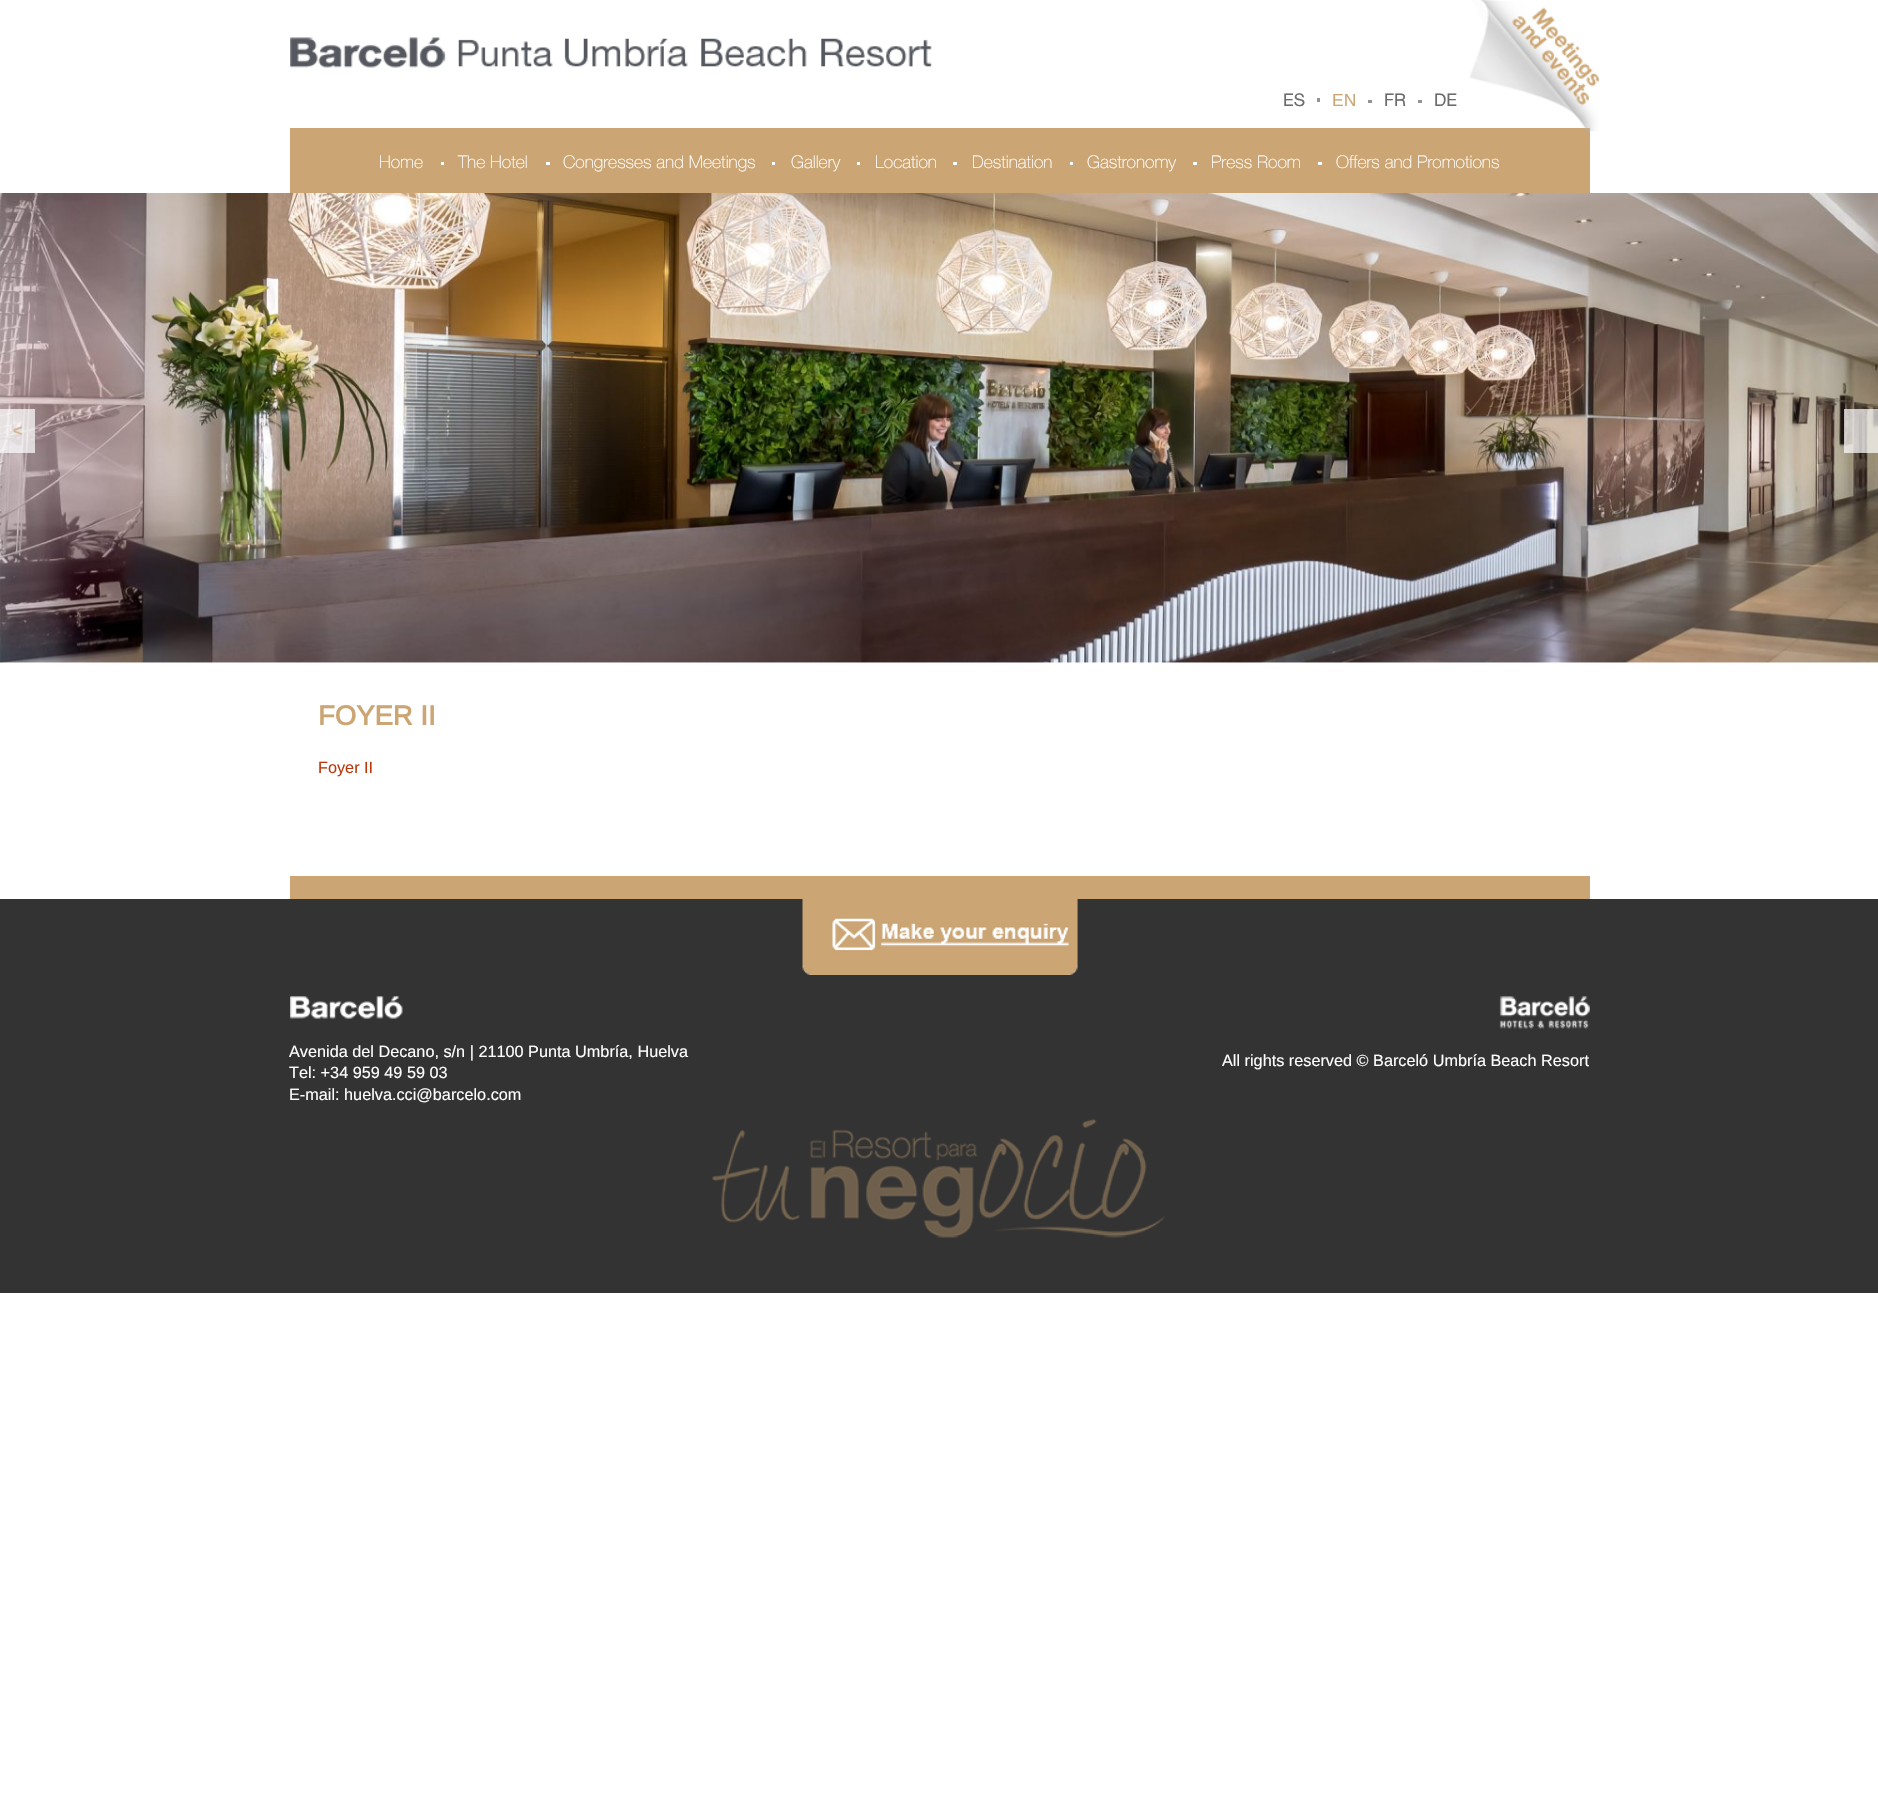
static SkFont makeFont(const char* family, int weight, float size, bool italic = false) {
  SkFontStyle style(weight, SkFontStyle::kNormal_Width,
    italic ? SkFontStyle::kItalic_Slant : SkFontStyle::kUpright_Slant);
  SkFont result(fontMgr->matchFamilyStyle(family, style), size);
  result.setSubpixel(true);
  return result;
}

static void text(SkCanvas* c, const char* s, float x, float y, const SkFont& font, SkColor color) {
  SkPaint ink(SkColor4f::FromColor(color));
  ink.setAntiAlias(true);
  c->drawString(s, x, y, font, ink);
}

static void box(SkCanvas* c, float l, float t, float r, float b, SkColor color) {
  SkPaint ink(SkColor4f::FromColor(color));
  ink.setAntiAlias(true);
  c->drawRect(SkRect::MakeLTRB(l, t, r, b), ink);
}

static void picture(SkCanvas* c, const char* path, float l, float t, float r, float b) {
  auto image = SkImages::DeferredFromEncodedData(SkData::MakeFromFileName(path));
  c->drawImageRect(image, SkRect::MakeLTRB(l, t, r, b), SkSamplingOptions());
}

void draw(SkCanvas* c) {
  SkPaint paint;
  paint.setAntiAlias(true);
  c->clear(0xffffffff);
  picture(c, "img_01.png", 290, 37, 932, 68);
  box(c, 290, 128, 1590, 193, 0xffcba674);
  picture(c, "img_02.png", 1469, 0, 1599, 132);
  SkFont face1 = makeFont("Helvetica Neue", 400, 17.5f);
  text(c, "ES", 1283, 106, face1, 0xff6b6b6b);
  box(c, 1317, 98, 1320, 102, 0xff939393);
  SkFont face2 = makeFont("Arimo", 400, 17.5f);
  text(c, "EN", 1332, 106, face2, 0xffcba674);
  box(c, 1368, 100, 1372, 103, 0xff939393);
  text(c, "FR", 1384, 106, face1, 0xff6b6b6b);
  box(c, 1418, 100, 1422, 103, 0xff939393);
  text(c, "DE", 1434, 106, face1, 0xff6b6b6b);
  SkFont face3 = makeFont("Helvetica Neue", 200, 17.5f);
  text(c, "Home", 379, 168, face3, 0xffffffff);
  box(c, 441, 162, 444, 165, 0xffffffff);
  text(c, "The Hotel", 458, 168, face3, 0xffffffff);
  box(c, 546, 162, 550, 165, 0xffffffff);
  text(c, "Congresses and Meetings", 563, 168, face3, 0xffffffff);
  box(c, 772, 162, 775, 165, 0xffffffff);
  text(c, "Gallery", 791, 168, face3, 0xffffffff);
  box(c, 857, 162, 860, 165, 0xffffffff);
  text(c, "Location", 875, 168, face3, 0xffffffff);
  box(c, 953, 162, 957, 165, 0xffffffff);
  text(c, "Destination", 972, 168, face3, 0xffffffff);
  box(c, 1070, 162, 1073, 165, 0xffffffff);
  text(c, "Gastronomy", 1087, 168, face3, 0xffffffff);
  box(c, 1193, 162, 1197, 165, 0xffffffff);
  text(c, "Press Room", 1211, 168, face3, 0xffffffff);
  box(c, 1318, 162, 1322, 165, 0xffffffff);
  text(c, "Offers and Promotions", 1336, 168, face3, 0xffffffff);
  picture(c, "img_03.png", 0, 193, 1878, 663);
  box(c, 0, 409, 35, 453, 0xb3ffffff);
  SkFont face4 = makeFont("Liberation Sans", 700, 16.25f);
  text(c, "<", 13, 436, face4, 0xffd3b794);
  box(c, 1844, 409, 1878, 453, 0xb3ffffff);
  SkFont face5 = makeFont("Arimo", 700, 27.5f);
  text(c, "FOYER II", 318, 725, face5, 0xffcba674);
  SkFont face6 = makeFont("Liberation Sans", 400, 16.25f);
  text(c, "Foyer II", 318, 773, face6, 0xffbc360a);
  box(c, 290, 876, 1590, 899, 0xffcba674);
  box(c, 0, 899, 1878, 1293, 0xff333333);
  picture(c, "img_04.png", 712, 1118, 1165, 1238);
  picture(c, "img_05.png", 802, 899, 1078, 975);
  picture(c, "img_06.png", 290, 996, 403, 1019);
  text(c, "Avenida del Decano, s/n | 21100 Punta Umbría, Huelva", 289, 1057, face6, 0xffffffff);
  text(c, "Tel: +34 959 49 59 03", 289, 1078, face6, 0xffffffff);
  text(c, "E-mail: huelva.cci@barcelo.com", 289, 1100, face6, 0xffffffff);
  picture(c, "img_07.png", 1499, 996, 1590, 1029);
  text(c, "All rights reserved © Barceló Umbría Beach Resort", 1222, 1066, face6, 0xffffffff);
}
